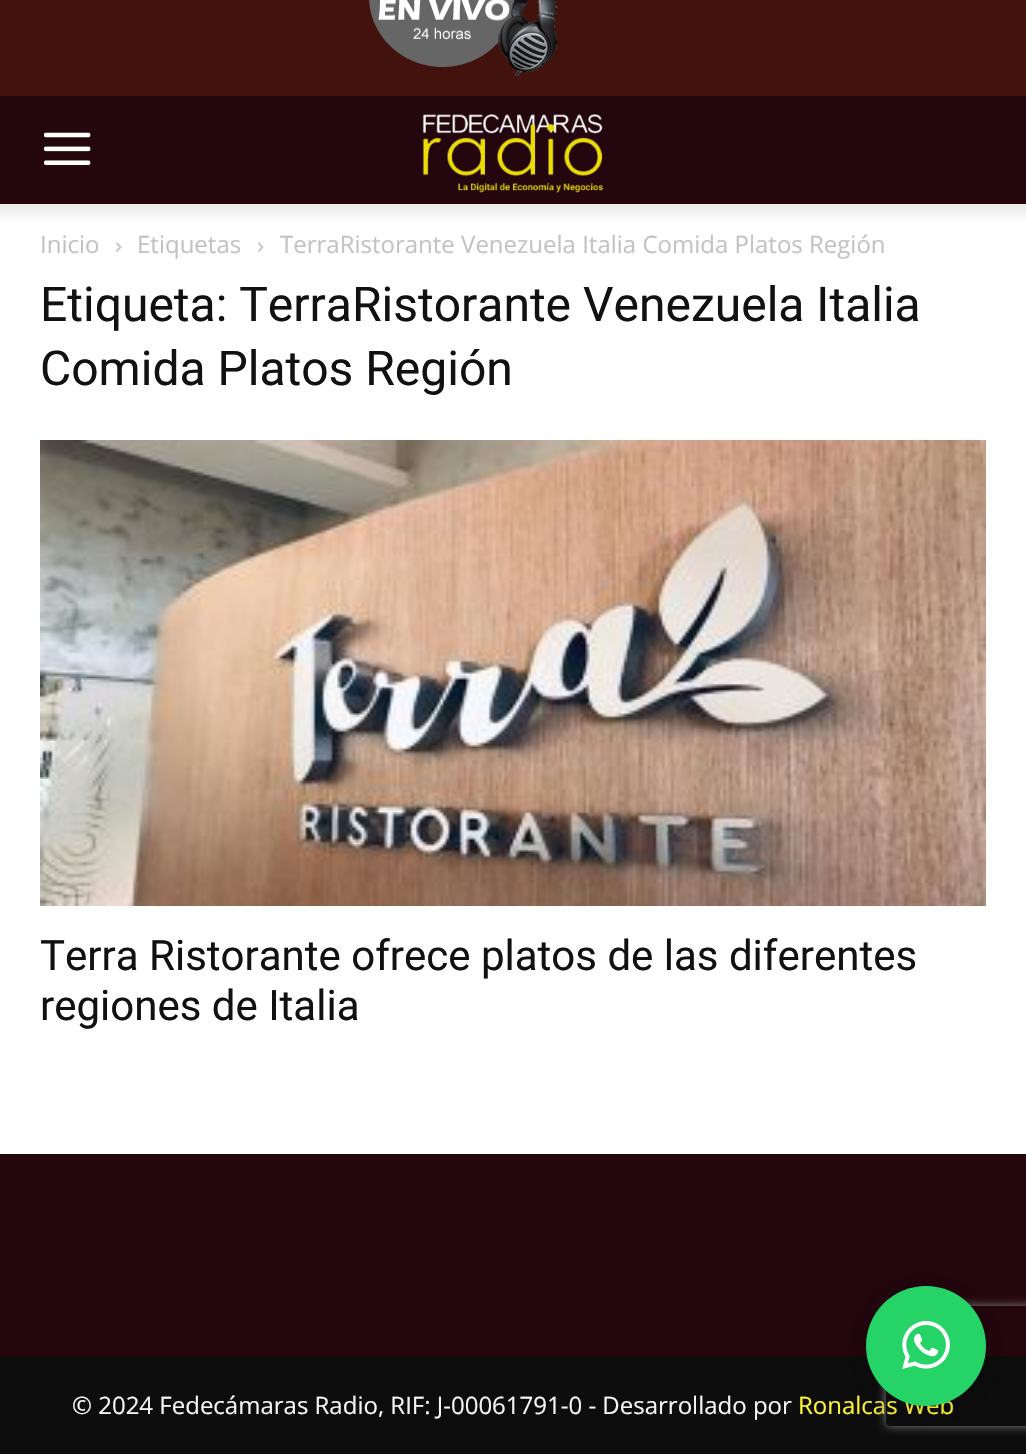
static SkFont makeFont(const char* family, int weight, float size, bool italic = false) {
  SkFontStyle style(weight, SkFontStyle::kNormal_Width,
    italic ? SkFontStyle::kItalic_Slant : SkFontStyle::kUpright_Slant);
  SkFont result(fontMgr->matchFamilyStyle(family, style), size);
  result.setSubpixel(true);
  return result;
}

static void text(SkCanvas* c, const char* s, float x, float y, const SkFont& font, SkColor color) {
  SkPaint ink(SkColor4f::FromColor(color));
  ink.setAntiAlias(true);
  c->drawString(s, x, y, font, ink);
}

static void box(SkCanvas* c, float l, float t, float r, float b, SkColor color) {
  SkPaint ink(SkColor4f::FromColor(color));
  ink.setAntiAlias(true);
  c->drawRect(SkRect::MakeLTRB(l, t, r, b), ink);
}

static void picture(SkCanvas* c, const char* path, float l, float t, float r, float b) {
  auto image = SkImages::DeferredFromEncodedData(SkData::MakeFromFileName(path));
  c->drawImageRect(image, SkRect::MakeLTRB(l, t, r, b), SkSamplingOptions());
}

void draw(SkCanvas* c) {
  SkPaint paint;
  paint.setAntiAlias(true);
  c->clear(0xffffffff);
  box(c, 0, 0, 1026, 96, 0xff42120d);
  picture(c, "img_01.png", 369, 0, 557, 76);
  box(c, 0, 96, 1026, 204, 0xff23060e);
  picture(c, "img_02.png", 44, 132, 91, 165);
  picture(c, "img_03.png", 422, 114, 604, 193);
  picture(c, "img_04.png", 0, 204, 1026, 221);
  SkFont face1 = makeFont("Open Sans", 400, 24);
  text(c, "Inicio", 40, 253, face1, 0xffc3c3c3);
  picture(c, "img_05.png", 116, 242, 122, 252);
  text(c, "Etiquetas", 137, 253, face1, 0xffc3c3c3);
  picture(c, "img_05.png", 258, 242, 264, 252);
  text(c, "TerraRistorante Venezuela Italia Comida Platos Región", 280, 253, face1, 0xffc3c3c3);
  SkFont face2 = makeFont("Roboto", 400, 48);
  text(c, "Etiqueta: TerraRistorante Venezuela Italia", 40, 321, face2, 0xff111111);
  text(c, "Comida Platos Región", 40, 385, face2, 0xff111111);
  picture(c, "img_06.png", 40, 440, 986, 906);
  SkFont face3 = makeFont("Roboto", 400, 42);
  text(c, "Terra Ristorante ofrece platos de las diferentes", 40, 970, face3, 0xff111111);
  text(c, "regiones de Italia", 40, 1020, face3, 0xff111111);
  box(c, 0, 1154, 1026, 1356, 0xff24060e);
  box(c, 0, 1356, 1026, 1454, 0xff0d0d0d);
  text(c, "© 2024 Fedecámaras Radio, RIF: J-00061791-0 - Desarrollado por", 72, 1414, face1, 0xfff4f4f4);
  text(c, "Ronalcas Web", 798, 1414, face1, 0xfffff633);
  paint.setColor(0x29000000);
  paint.setMaskFilter(SkMaskFilter::MakeBlur(kNormal_SkBlurStyle, 32));
  c->drawRoundRect(SkRect::MakeLTRB(866, 1290, 986, 1410), 60, 60, paint);
  paint.setMaskFilter(nullptr);
  paint.setColor(0x0f000000);
  paint.setMaskFilter(SkMaskFilter::MakeBlur(kNormal_SkBlurStyle, 6));
  c->drawRoundRect(SkRect::MakeLTRB(866, 1288, 986, 1408), 60, 60, paint);
  paint.setMaskFilter(nullptr);
  c->save();
  c->clipPath(SkPathBuilder(SkPathFillType::kEvenOdd).moveTo(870, 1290).lineTo(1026, 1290).lineTo(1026, 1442).lineTo(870, 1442).close().moveTo(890, 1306).lineTo(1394, 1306).cubicTo(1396, 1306, 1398, 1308, 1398, 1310).lineTo(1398, 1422).cubicTo(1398, 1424, 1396, 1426, 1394, 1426).lineTo(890, 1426).cubicTo(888, 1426, 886, 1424, 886, 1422).lineTo(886, 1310).cubicTo(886, 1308, 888, 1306, 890, 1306).close().detach(), true);
  paint.setColor(0xff808080);
  paint.setMaskFilter(SkMaskFilter::MakeBlur(kNormal_SkBlurStyle, 5));
  c->drawRoundRect(SkRect::MakeLTRB(886, 1306, 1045, 1426), 4, 4, paint);
  paint.setMaskFilter(nullptr);
  c->restore();
  paint.setColor(0xff25d366);
  c->drawCircle(926, 1346, 60, paint);
  picture(c, "img_07.png", 902, 1321, 950, 1369);
}
